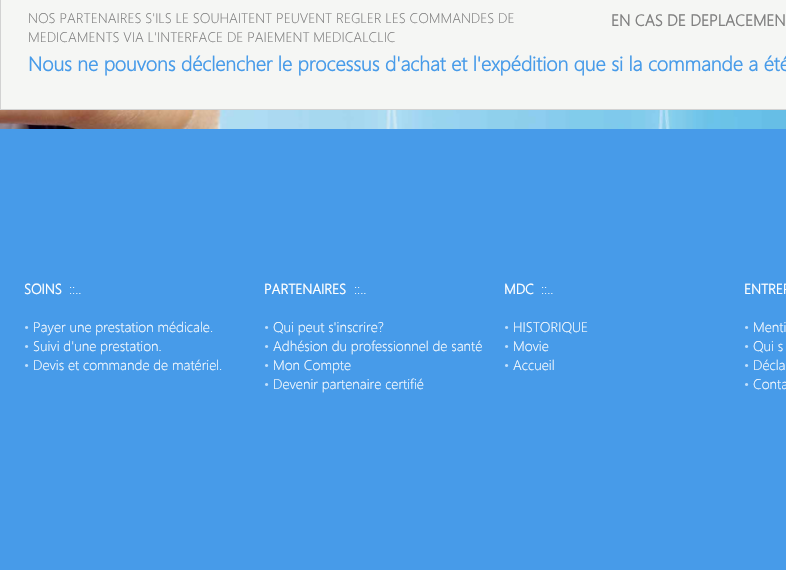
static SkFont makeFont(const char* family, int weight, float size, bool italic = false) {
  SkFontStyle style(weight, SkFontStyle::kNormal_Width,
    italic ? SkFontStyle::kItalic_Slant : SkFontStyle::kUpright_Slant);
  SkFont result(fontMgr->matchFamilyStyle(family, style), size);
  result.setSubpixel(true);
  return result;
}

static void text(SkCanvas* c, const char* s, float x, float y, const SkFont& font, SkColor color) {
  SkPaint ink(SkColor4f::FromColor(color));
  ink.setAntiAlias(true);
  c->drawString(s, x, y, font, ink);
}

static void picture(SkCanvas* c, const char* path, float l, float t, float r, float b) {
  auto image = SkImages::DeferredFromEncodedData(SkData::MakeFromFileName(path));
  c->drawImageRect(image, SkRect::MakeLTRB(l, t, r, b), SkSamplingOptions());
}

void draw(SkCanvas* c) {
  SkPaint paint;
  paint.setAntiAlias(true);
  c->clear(0xff479be9);
  picture(c, "img_01.png", 0, 110, 786, 129);
  paint.setColor(0xfff5f6f4);
  c->drawRect(SkRect::MakeLTRB(0.5f, -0.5f, 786.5f, 109.5f), paint);
  paint.setStyle(SkPaint::kStroke_Style);
  paint.setStrokeWidth(1);
  paint.setColor(0xffd2d2d2);
  c->drawRect(SkRect::MakeLTRB(0.5f, -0.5f, 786.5f, 109.5f), paint);
  SkFont face1 = makeFont("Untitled", 400, 14);
  text(c, "NOS PARTENAIRES S'ILS LE SOUHAITENT PEUVENT REGLER LES COMMANDES DE", 28, 23, face1, 0xff808080);
  text(c, "MEDICAMENTS VIA L'INTERFACE DE PAIEMENT MEDICALCLIC", 28, 42, face1, 0xff808080);
  SkFont face2 = makeFont("Untitled", 700, 16);
  text(c, "EN CAS DE DEPLACEMEN", 611, 26, face2, 0xff808080);
  SkFont face3 = makeFont("Untitled", 700, 20);
  text(c, "Nous ne pouvons déclencher le processus d'achat et l'expédition que si la commande a été", 28, 71, face3, 0xff479be9);
  SkFont face4 = makeFont("Untitled", 700, 14);
  text(c, "SOINS", 24, 294, face4, 0xffffffff);
  text(c, "::..", 69, 294, face1, 0xffffffff);
  SkFont face5 = makeFont("Untitled", 400, 13);
  text(c, "•", 24, 332, face5, 0xffc0dffc);
  text(c, "Payer une prestation médicale.", 33, 332, face1, 0xffffffff);
  text(c, "•", 24, 351, face5, 0xffc0dffc);
  text(c, "Suivi d'une prestation.", 33, 351, face1, 0xffffffff);
  text(c, "•", 24, 370, face5, 0xffc0dffc);
  text(c, "Devis et commande de matériel.", 33, 370, face1, 0xffffffff);
  text(c, "PARTENAIRES", 264, 294, face4, 0xffffffff);
  text(c, "::..", 354, 294, face1, 0xffffffff);
  text(c, "•", 264, 332, face5, 0xffc0dffc);
  text(c, "Qui peut s'inscrire?", 273, 332, face1, 0xffffffff);
  text(c, "•", 264, 351, face5, 0xffc0dffc);
  text(c, "Adhésion du professionnel de santé", 273, 351, face1, 0xffffffff);
  text(c, "•", 264, 370, face5, 0xffc0dffc);
  text(c, "Mon Compte", 273, 370, face1, 0xffffffff);
  text(c, "•", 264, 389, face5, 0xffc0dffc);
  text(c, "Devenir partenaire certifié", 273, 389, face1, 0xffffffff);
  text(c, "MDC", 504, 294, face4, 0xffffffff);
  text(c, "::..", 541, 294, face1, 0xffffffff);
  text(c, "•", 504, 332, face5, 0xffc0dffc);
  text(c, "HISTORIQUE", 513, 332, face1, 0xffffffff);
  text(c, "•", 504, 351, face5, 0xffc0dffc);
  text(c, "Movie", 513, 351, face1, 0xffffffff);
  text(c, "•", 504, 370, face5, 0xffc0dffc);
  text(c, "Accueil", 513, 370, face1, 0xffffffff);
  text(c, "ENTREP", 744, 294, face4, 0xffffffff);
  text(c, "•", 744, 332, face5, 0xffc0dffc);
  text(c, "Menti", 753, 332, face1, 0xffffffff);
  text(c, "•", 744, 351, face5, 0xffc0dffc);
  text(c, "Qui s", 753, 351, face1, 0xffffffff);
  text(c, "•", 744, 370, face5, 0xffc0dffc);
  text(c, "Décla", 753, 370, face1, 0xffffffff);
  text(c, "•", 744, 389, face5, 0xffc0dffc);
  text(c, "Conta", 753, 389, face1, 0xffffffff);
}
